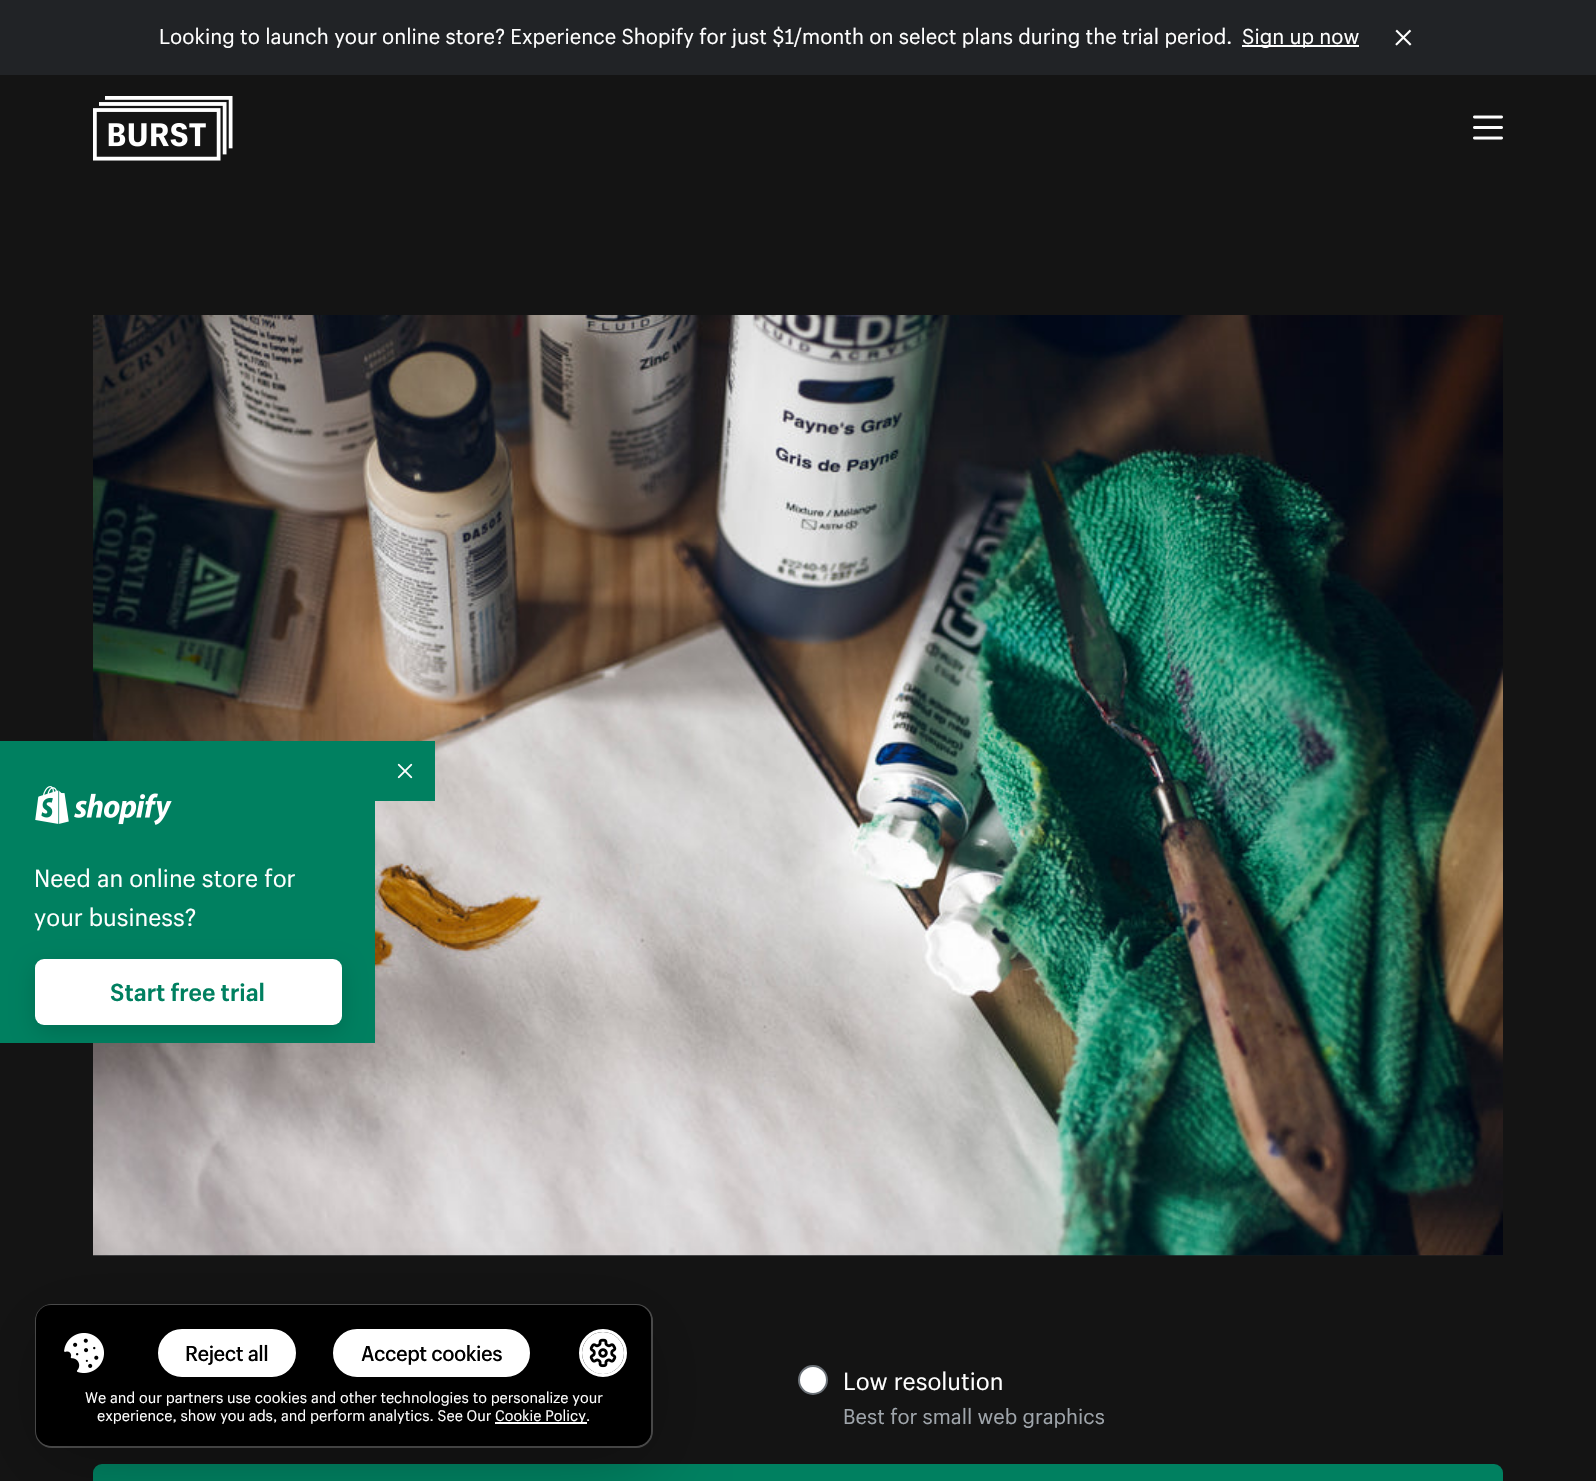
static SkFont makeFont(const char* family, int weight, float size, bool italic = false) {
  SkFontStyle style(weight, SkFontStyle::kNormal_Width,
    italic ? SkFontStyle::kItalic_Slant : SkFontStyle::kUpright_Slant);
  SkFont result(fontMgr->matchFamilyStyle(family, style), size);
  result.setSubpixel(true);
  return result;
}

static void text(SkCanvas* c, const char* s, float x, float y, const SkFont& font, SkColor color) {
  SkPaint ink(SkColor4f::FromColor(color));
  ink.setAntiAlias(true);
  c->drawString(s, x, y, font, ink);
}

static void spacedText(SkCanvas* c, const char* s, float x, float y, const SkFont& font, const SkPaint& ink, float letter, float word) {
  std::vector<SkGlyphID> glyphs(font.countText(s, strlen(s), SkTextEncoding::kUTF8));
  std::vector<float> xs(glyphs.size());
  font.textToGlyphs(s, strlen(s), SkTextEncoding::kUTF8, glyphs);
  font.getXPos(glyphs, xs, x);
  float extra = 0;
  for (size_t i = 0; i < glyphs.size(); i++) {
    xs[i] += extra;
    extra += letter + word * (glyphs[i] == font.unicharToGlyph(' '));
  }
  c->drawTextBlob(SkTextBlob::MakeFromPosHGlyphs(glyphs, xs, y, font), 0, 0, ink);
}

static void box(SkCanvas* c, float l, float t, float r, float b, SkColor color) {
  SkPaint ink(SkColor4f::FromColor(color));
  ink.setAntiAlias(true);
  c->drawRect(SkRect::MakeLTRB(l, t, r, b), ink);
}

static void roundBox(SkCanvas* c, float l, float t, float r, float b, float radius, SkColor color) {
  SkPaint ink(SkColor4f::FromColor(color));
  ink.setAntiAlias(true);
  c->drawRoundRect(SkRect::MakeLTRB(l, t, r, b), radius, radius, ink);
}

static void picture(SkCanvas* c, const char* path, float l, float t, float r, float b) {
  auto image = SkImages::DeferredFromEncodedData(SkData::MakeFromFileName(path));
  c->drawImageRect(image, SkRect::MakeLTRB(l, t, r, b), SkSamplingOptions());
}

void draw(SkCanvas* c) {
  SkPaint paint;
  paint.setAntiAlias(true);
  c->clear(0xff141414);
  box(c, 0, 0, 1596, 75, 0xff212326);
  SkFont face1 = makeFont("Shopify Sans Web", 400, 21);
  text(c, "Looking to launch your online store? Experience Shopify for just $1/month on select plans during the trial period.", 159, 44, face1, 0xffffffff);
  box(c, 1242, 45, 1359, 47, 0xffffffff);
  text(c, "Sign up now", 1242, 44, face1, 0xffffffff);
  picture(c, "img_01.png", 1395, 29, 1412, 46);
  picture(c, "img_02.png", 93, 96, 233, 161);
  picture(c, "img_03.png", 1473, 115, 1503, 140);
  box(c, 93, 1255, 1503, 1256, 0xff16191b);
  picture(c, "img_06.png", 93, 315, 1503, 1256);
  box(c, 375, 741, 435, 801, 0xff008060);
  picture(c, "img_04.png", 397, 763, 413, 779);
  box(c, 0, 741, 375, 1043, 0xff008060);
  picture(c, "img_05.png", 35, 786, 172, 825);
  SkFont face2 = makeFont("Shopify Sans Web", 400, 24);
  text(c, "Need an online store for", 34, 887, face2, 0xffffffff);
  text(c, "your business?", 34, 926, face2, 0xffffffff);
  paint.setColor(0x26000000);
  paint.setMaskFilter(SkMaskFilter::MakeBlur(kNormal_SkBlurStyle, 11));
  c->drawRoundRect(SkRect::MakeLTRB(35, 966, 342, 1032), 9, 9, paint);
  paint.setMaskFilter(nullptr);
  roundBox(c, 35, 959, 342, 1025, 9, 0xffffffff);
  SkFont face3 = makeFont("Shopify Sans Web", 700, 24);
  text(c, "Start free trial", 110, 1001, face3, 0xff008060);
  paint.setColor(0xffffffff);
  c->drawCircle(813, 1380, 14, paint);
  paint.setStyle(SkPaint::kStroke_Style);
  paint.setStrokeWidth(2);
  paint.setColor(0xff6b7177);
  c->drawCircle(813, 1380, 14, paint);
  text(c, "Low resolution", 843, 1390, face2, 0xffffffff);
  SkFont face4 = makeFont("Shopify Sans Web", 400, 20.9f);
  text(c, "Best for small web graphics", 843, 1424, face4, 0xff9fa5ab);
  roundBox(c, 93, 1464, 1503, 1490, 9, 0xff008060);
  paint.setColor(0x40ffffff);
  c->drawRoundRect(SkRect::MakeLTRB(36, 1305, 652, 1447), 16, 16, paint);
  paint.setStyle(SkPaint::kFill_Style);
  paint.setColor(0x40000000);
  paint.setMaskFilter(SkMaskFilter::MakeBlur(kNormal_SkBlurStyle, 37.5f));
  c->drawRoundRect(SkRect::MakeLTRB(36, 1320, 651, 1461), 15, 15, paint);
  paint.setMaskFilter(nullptr);
  roundBox(c, 36, 1305, 651, 1446, 15, 0xff000000);
  picture(c, "img_07.png", 64, 1333, 104, 1373);
  paint.setColor(0xffffffff);
  c->drawRoundRect(SkRect::MakeLTRB(159.5f, 1330.5f, 294.5f, 1375.5f), 22.5f, 22.5f, paint);
  paint.setStyle(SkPaint::kStroke_Style);
  paint.setStrokeWidth(3);
  c->drawRoundRect(SkRect::MakeLTRB(159.5f, 1330.5f, 294.5f, 1375.5f), 22.5f, 22.5f, paint);
  SkFont face5 = makeFont("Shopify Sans", 500, 21);
  paint.setStyle(SkPaint::kFill_Style);
  paint.setColor(0xff000000);
  spacedText(c, "Reject all", 185, 1361, face5, paint, -0.5f, 0);
  paint.setColor(0xffffffff);
  c->drawRoundRect(SkRect::MakeLTRB(334.5f, 1330.5f, 528.5f, 1375.5f), 22.5f, 22.5f, paint);
  paint.setStyle(SkPaint::kStroke_Style);
  c->drawRoundRect(SkRect::MakeLTRB(334.5f, 1330.5f, 528.5f, 1375.5f), 22.5f, 22.5f, paint);
  paint.setStyle(SkPaint::kFill_Style);
  paint.setColor(0xff000000);
  spacedText(c, "Accept cookies", 361, 1361, face5, paint, -0.5f, 0);
  paint.setStyle(SkPaint::kStroke_Style);
  paint.setColor(0xffffffff);
  c->drawCircle(603, 1353, 22.5f, paint);
  paint.setStyle(SkPaint::kFill_Style);
  c->drawCircle(603, 1353, 21, paint);
  picture(c, "img_08.png", 589, 1338, 617, 1368);
  SkFont face6 = makeFont("Shopify Sans Web", 400, 15);
  text(c, "We and our partners use cookies and other technologies to personalize your", 85, 1403, face6, 0xffffffff);
  text(c, "experience, show you ads, and perform analytics. See Our", 97, 1421, face6, 0xffffffff);
  box(c, 495, 1422, 587, 1424, 0xffffffff);
  text(c, "Cookie Policy.", 495, 1421, face6, 0xffffffff);
}
